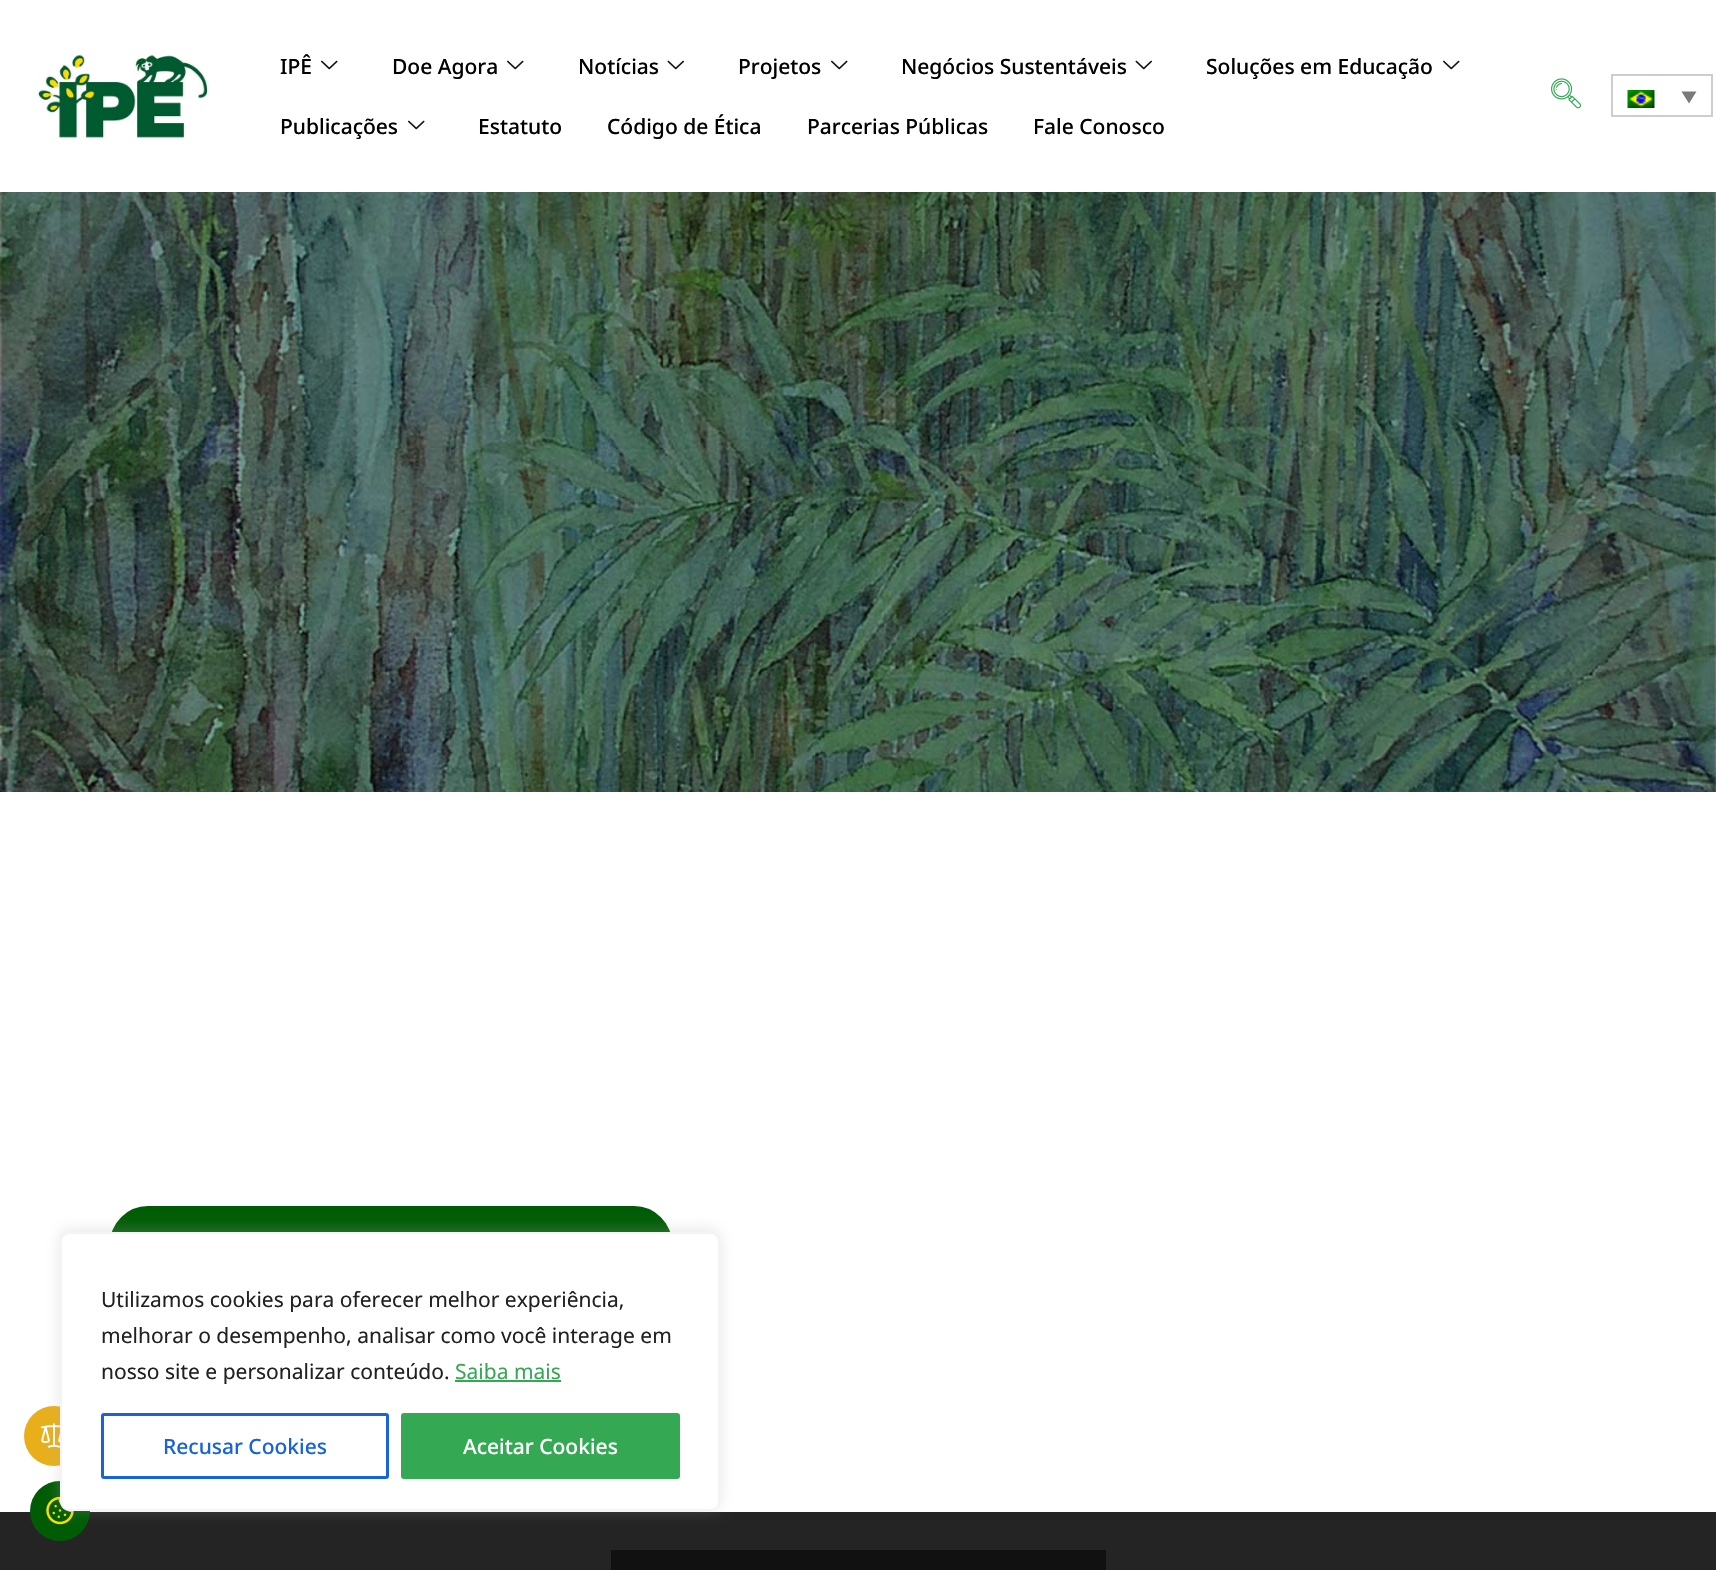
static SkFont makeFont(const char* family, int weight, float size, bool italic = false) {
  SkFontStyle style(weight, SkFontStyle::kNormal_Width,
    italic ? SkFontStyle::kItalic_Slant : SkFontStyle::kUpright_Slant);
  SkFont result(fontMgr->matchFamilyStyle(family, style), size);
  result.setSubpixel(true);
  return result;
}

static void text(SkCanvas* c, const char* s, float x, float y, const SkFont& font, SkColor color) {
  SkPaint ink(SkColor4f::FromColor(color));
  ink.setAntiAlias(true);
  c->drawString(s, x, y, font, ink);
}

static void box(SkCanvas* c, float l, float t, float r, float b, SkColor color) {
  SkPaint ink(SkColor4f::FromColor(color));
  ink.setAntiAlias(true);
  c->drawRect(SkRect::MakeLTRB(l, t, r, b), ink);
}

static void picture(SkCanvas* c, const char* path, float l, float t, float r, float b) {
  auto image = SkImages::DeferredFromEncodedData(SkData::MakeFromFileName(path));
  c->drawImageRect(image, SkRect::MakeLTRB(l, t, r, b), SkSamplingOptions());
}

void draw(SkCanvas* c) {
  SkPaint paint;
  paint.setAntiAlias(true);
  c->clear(0xffffffff);
  picture(c, "img_01.png", 37, 54, 209, 139);
  SkFont face1 = makeFont("Noto Sans", 500, 21);
  text(c, "IPÊ", 280, 74, face1, 0xff000000);
  picture(c, "img_02.png", 321, 60, 338, 70);
  text(c, "Doe Agora", 392, 74, face1, 0xff000000);
  picture(c, "img_02.png", 507, 60, 524, 70);
  text(c, "Notícias", 578, 74, face1, 0xff000000);
  picture(c, "img_03.png", 667, 60, 684, 70);
  text(c, "Projetos", 738, 74, face1, 0xff000000);
  picture(c, "img_02.png", 831, 60, 848, 70);
  text(c, "Negócios Sustentáveis", 901, 74, face1, 0xff000000);
  picture(c, "img_03.png", 1135, 60, 1152, 70);
  text(c, "Soluções em Educação", 1206, 74, face1, 0xff000000);
  picture(c, "img_02.png", 1443, 60, 1460, 70);
  text(c, "Publicações", 280, 134, face1, 0xff000000);
  picture(c, "img_02.png", 408, 120, 425, 130);
  text(c, "Estatuto", 478, 134, face1, 0xff000000);
  text(c, "Código de Ética", 607, 134, face1, 0xff000000);
  text(c, "Parcerias Públicas", 807, 134, face1, 0xff000000);
  text(c, "Fale Conosco", 1033, 134, face1, 0xff000000);
  picture(c, "img_04.png", 1551, 78, 1581, 109);
  paint.setStyle(SkPaint::kStroke_Style);
  paint.setStrokeWidth(2);
  paint.setColor(0xffcdcdcd);
  c->drawRect(SkRect::MakeLTRB(1612, 75, 1712, 116), paint);
  picture(c, "img_05.png", 1627, 90, 1655, 108);
  paint.setStyle(SkPaint::kFill_Style);
  paint.setColor(0xff7a7a7a);
  c->drawPath(SkPathBuilder().moveTo(1681.5f, 91.5f).lineTo(1696.5f, 91.5f).lineTo(1689, 103.5f).close().detach(), paint);
  picture(c, "img_06.png", 0, 192, 1716, 792);
  paint.setColor(0xff005c04);
  c->drawRoundRect(SkRect::MakeLTRB(111, 1207, 671, 1493), 37, 37, paint);
  paint.setStyle(SkPaint::kStroke_Style);
  c->drawRoundRect(SkRect::MakeLTRB(111, 1207, 671, 1493), 37, 37, paint);
  box(c, 0, 1512, 1716, 1570, 0xff242424);
  paint.setStyle(SkPaint::kFill_Style);
  c->drawCircle(60, 1511, 30, paint);
  picture(c, "img_07.png", 46, 1496, 74, 1525);
  paint.setColor(0xffe8af1b);
  c->drawCircle(54, 1436, 30, paint);
  picture(c, "img_08.png", 40, 1423, 60, 1448);
  paint.setColor(0x4dacabab);
  paint.setMaskFilter(SkMaskFilter::MakeBlur(kNormal_SkBlurStyle, 7.5f));
  c->drawRoundRect(SkRect::MakeLTRB(60, 1230, 720, 1509), 9, 9, paint);
  paint.setMaskFilter(nullptr);
  paint.setColor(0xffffffff);
  c->drawRoundRect(SkRect::MakeLTRB(61, 1233, 719, 1510), 8, 8, paint);
  paint.setStyle(SkPaint::kStroke_Style);
  paint.setColor(0xfff4f4f4);
  c->drawRoundRect(SkRect::MakeLTRB(61, 1233, 719, 1510), 8, 8, paint);
  SkFont face2 = makeFont("Noto Sans", 400, 21);
  text(c, "Utilizamos cookies para oferecer melhor experiência,", 101, 1307, face2, 0xff212121);
  text(c, "melhorar o desempenho, analisar como você interage em", 101, 1343, face2, 0xff212121);
  text(c, "nosso site e personalizar conteúdo.", 101, 1379, face2, 0xff212121);
  text(c, "Saiba mais", 455, 1379, face2, 0xff34a853);
  box(c, 455, 1380, 561, 1382, 0xff34a853);
  paint.setStrokeWidth(3);
  paint.setColor(0xff1863dc);
  c->drawRoundRect(SkRect::MakeLTRB(102.5f, 1414.5f, 387.5f, 1477.5f), 1.5f, 1.5f, paint);
  text(c, "Recusar Cookies", 163, 1454, face1, 0xff1863dc);
  paint.setStyle(SkPaint::kFill_Style);
  paint.setColor(0xff34a853);
  c->drawRoundRect(SkRect::MakeLTRB(402.5f, 1414.5f, 678.5f, 1477.5f), 1.5f, 1.5f, paint);
  paint.setStyle(SkPaint::kStroke_Style);
  c->drawRoundRect(SkRect::MakeLTRB(402.5f, 1414.5f, 678.5f, 1477.5f), 1.5f, 1.5f, paint);
  text(c, "Aceitar Cookies", 463, 1454, face1, 0xffffffff);
  box(c, 611, 1550, 1106, 1570, 0xff111111);
}
